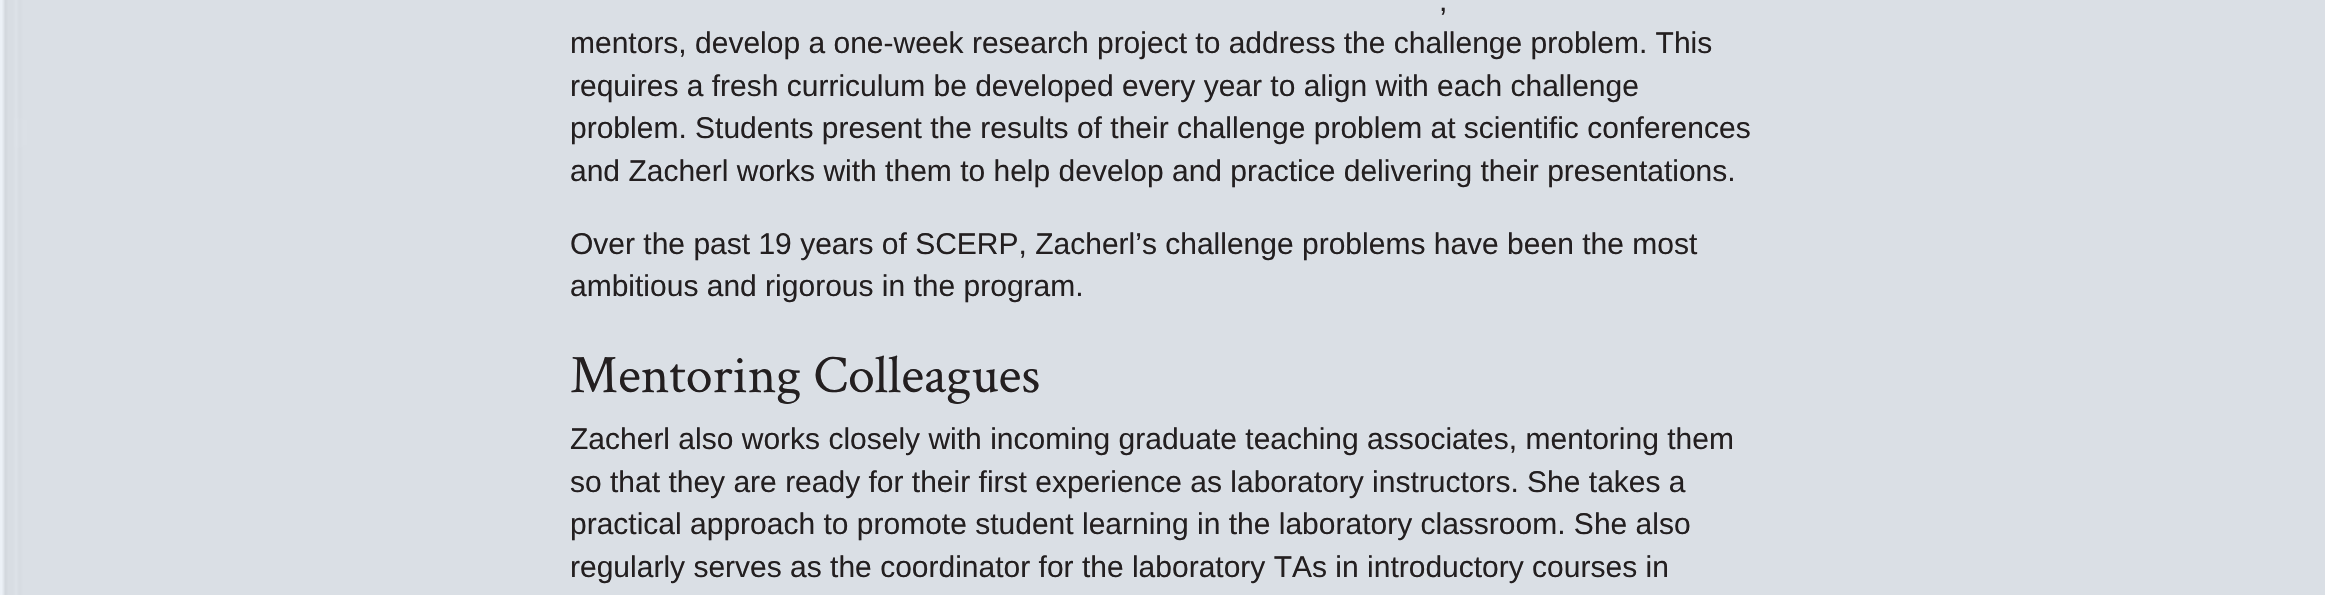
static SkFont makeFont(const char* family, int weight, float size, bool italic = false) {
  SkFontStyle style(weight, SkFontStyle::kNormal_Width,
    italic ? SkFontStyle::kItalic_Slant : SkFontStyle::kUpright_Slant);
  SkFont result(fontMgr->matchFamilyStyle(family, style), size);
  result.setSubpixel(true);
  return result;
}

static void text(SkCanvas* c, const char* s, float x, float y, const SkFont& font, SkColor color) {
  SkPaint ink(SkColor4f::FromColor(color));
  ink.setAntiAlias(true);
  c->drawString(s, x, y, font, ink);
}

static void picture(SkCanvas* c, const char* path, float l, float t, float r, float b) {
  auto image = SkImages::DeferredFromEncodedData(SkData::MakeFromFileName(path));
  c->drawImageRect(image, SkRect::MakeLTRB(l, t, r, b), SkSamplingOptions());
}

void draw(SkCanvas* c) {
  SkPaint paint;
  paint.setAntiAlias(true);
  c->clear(0xffffffff);
  picture(c, "img_01.png", 0, 0, 2325, 595);
  SkFont face1 = makeFont("Liberation Sans", 400, 30);
  text(c, ",", 1439, 11, face1, 0xff231f20);
  text(c, "mentors, develop a one-week research project to address the challenge problem. This", 570, 53, face1, 0xff231f20);
  text(c, "requires a fresh curriculum be developed every year to align with each challenge", 570, 96, face1, 0xff231f20);
  text(c, "problem. Students present the results of their challenge problem at scientific conferences", 570, 138, face1, 0xff231f20);
  text(c, "and Zacherl works with them to help develop and practice delivering their presentations.", 570, 181, face1, 0xff231f20);
  text(c, "Over the past 19 years of SCERP, Zacherl’s challenge problems have been the most", 570, 254, face1, 0xff231f20);
  text(c, "ambitious and rigorous in the program.", 570, 296, face1, 0xff231f20);
  SkFont face2 = makeFont("Crimson Text", 400, 54);
  text(c, "Mentoring Colleagues", 570, 392, face2, 0xff231f20);
  text(c, "Zacherl also works closely with incoming graduate teaching associates, mentoring them", 570, 449, face1, 0xff231f20);
  text(c, "so that they are ready for their first experience as laboratory instructors. She takes a", 570, 492, face1, 0xff231f20);
  text(c, "practical approach to promote student learning in the laboratory classroom. She also", 570, 534, face1, 0xff231f20);
  text(c, "regularly serves as the coordinator for the laboratory TAs in introductory courses in", 570, 577, face1, 0xff231f20);
}
